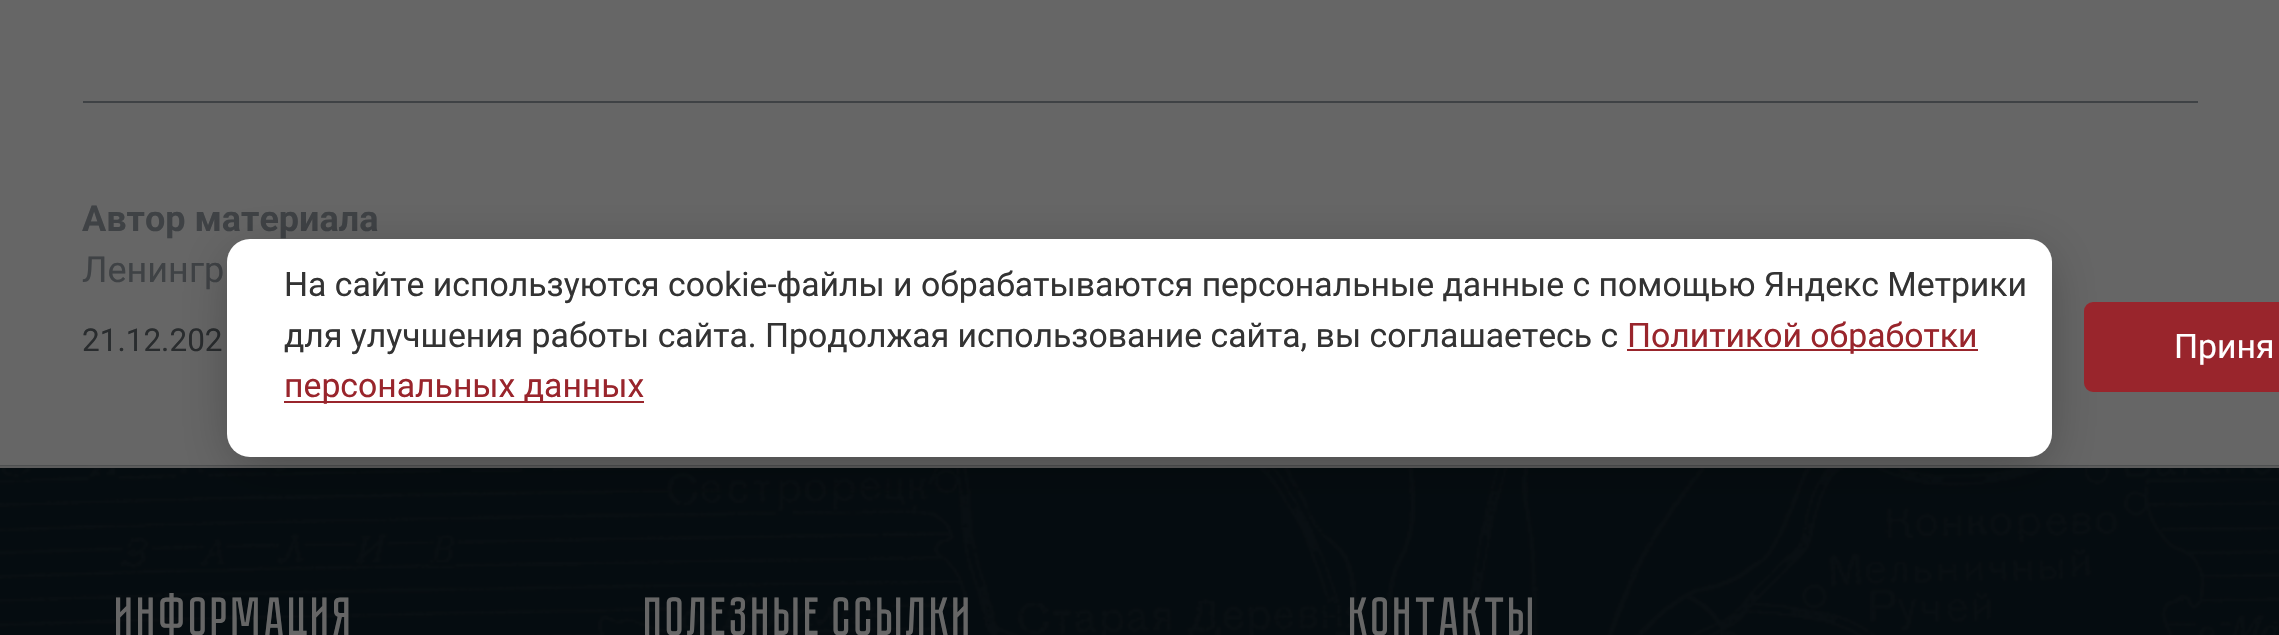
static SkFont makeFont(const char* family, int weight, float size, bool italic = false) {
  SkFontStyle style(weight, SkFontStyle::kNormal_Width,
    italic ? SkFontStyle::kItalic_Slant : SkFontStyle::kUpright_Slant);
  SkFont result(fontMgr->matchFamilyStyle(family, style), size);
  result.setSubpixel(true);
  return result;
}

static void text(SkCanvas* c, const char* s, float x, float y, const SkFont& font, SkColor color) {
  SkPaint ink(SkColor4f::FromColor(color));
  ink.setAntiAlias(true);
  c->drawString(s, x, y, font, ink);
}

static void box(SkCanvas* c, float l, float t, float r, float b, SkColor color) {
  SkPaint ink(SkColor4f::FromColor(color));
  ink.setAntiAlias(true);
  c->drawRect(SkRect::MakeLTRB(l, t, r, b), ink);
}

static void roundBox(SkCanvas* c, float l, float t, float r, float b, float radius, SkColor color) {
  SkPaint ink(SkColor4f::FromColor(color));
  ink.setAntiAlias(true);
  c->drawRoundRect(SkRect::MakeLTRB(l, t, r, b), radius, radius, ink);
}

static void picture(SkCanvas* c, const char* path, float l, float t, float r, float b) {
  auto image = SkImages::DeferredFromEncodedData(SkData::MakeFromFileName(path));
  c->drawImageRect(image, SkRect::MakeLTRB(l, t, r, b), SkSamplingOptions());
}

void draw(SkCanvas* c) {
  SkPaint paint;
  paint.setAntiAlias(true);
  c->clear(0xff666666);
  box(c, 83, 101, 2198, 103, 0xff3f4245);
  SkFont face1 = makeFont("Roboto", 700, 36);
  text(c, "Автор материала", 82, 231, face1, 0xff3f4245);
  SkFont face2 = makeFont("Roboto", 400, 36);
  text(c, "Ленингр", 82, 282, face2, 0xff3f4245);
  SkFont face3 = makeFont("Roboto", 400, 31.5f);
  text(c, "21.12.202", 82, 351, face3, 0xff292c2e);
  picture(c, "img_01.png", 0, 465, 2279, 635);
  box(c, 0, 466, 2279, 468, 0xff5c5c5c);
  SkFont face4 = makeFont("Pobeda", 700, 54);
  text(c, "Информация", 116, 635, face4, 0xff666666);
  text(c, "Полезные ссылки", 645, 635, face4, 0xff666666);
  text(c, "Контакты", 1350, 635, face4, 0xff666666);
  paint.setColor(0x4d000000);
  paint.setMaskFilter(SkMaskFilter::MakeBlur(kNormal_SkBlurStyle, 26));
  c->drawRoundRect(SkRect::MakeLTRB(234, 257, 2045, 461), 16, 16, paint);
  paint.setMaskFilter(nullptr);
  roundBox(c, 227, 239, 2052, 457, 23, 0xffffffff);
  SkFont face5 = makeFont("Roboto", 400, 33.75f);
  text(c, "На сайте используются cookie-файлы и обрабатываются персональные данные с помощью Яндекс Метрики", 284, 296, face5, 0xff333333);
  text(c, "для улучшения работы сайта. Продолжая использование сайта, вы соглашаетесь с", 284, 347, face5, 0xff333333);
  box(c, 1627, 349, 1978, 351, 0xff99252c);
  text(c, "Политикой обработки", 1627, 347, face5, 0xff99252c);
  box(c, 284, 401, 644, 403, 0xff99252c);
  text(c, "персональных данных", 284, 397, face5, 0xff99252c);
  paint.setColor(0xff99252c);
  c->drawRoundRect(SkRect::MakeLTRB(2085, 303, 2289, 391), 8, 8, paint);
  paint.setStyle(SkPaint::kStroke_Style);
  paint.setStrokeWidth(2);
  c->drawRoundRect(SkRect::MakeLTRB(2085, 303, 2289, 391), 8, 8, paint);
  text(c, "Приня", 2174, 358, face5, 0xffffffff);
}
